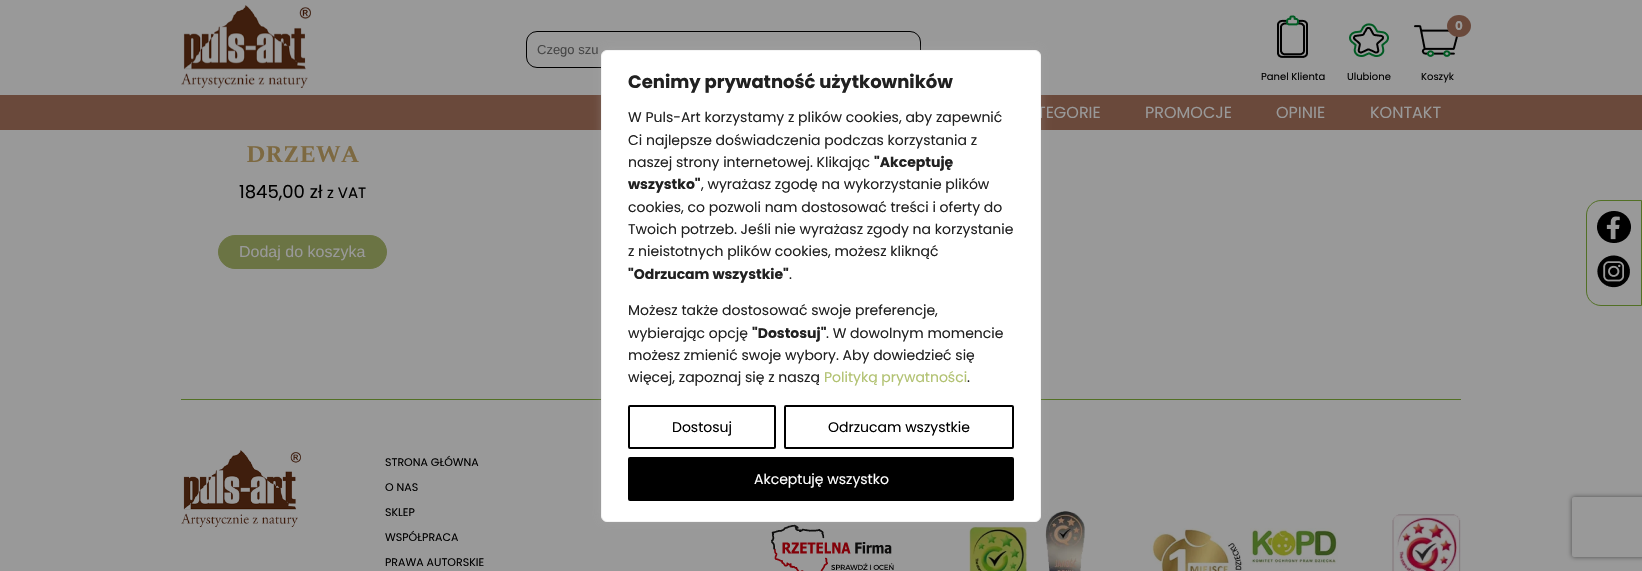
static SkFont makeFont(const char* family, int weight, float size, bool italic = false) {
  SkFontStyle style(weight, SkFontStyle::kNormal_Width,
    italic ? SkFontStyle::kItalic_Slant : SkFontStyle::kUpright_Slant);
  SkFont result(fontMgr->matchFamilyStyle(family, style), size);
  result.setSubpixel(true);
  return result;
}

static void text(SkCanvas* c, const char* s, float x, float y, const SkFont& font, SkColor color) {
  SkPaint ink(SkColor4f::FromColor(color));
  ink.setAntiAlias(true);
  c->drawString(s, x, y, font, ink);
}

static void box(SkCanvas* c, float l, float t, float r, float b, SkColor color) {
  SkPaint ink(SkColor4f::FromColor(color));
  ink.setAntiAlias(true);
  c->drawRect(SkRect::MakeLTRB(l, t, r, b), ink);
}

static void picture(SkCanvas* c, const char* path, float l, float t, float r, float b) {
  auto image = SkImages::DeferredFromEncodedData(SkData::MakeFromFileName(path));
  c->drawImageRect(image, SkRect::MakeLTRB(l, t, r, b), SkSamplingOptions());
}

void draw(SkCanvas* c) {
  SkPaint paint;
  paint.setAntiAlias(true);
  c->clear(0xff999999);
  picture(c, "img_01.png", 181, 5, 311, 88);
  paint.setStyle(SkPaint::kStroke_Style);
  paint.setStrokeWidth(1);
  paint.setColor(0xff000000);
  c->drawRoundRect(SkRect::MakeLTRB(526.5f, 31.5f, 920.5f, 67.5f), 10.5f, 10.5f, paint);
  SkFont face1 = makeFont("Liberation Sans", 400, 13);
  text(c, "Czego szu", 537, 54, face1, 0xff464646);
  picture(c, "img_02.png", 1277, 15, 1308, 58);
  SkFont face2 = makeFont("Poppins", 400, 10);
  text(c, "Panel Klienta", 1261, 80, face2, 0xff000000);
  picture(c, "img_03.png", 1349, 23, 1389, 57);
  text(c, "Ulubione", 1347, 80, face2, 0xff000000);
  picture(c, "img_04.png", 1414, 25, 1460, 57);
  paint.setStyle(SkPaint::kFill_Style);
  paint.setColor(0xff6a493b);
  c->drawOval(SkRect::MakeLTRB(1447, 15, 1471, 37), paint);
  SkFont face3 = makeFont("Poppins", 700, 12);
  text(c, "0", 1455, 30, face3, 0xff999999);
  text(c, "Koszyk", 1421, 80, face2, 0xff000000);
  box(c, 0, 95, 1642, 130, 0xff6a493b);
  SkFont face4 = makeFont("Poppins", 400, 16);
  text(c, "TEGORIE", 1037, 118, face4, 0xff999999);
  text(c, "PROMOCJE", 1145, 118, face4, 0xff999999);
  text(c, "OPINIE", 1276, 118, face4, 0xff999999);
  text(c, "KONTAKT", 1370, 118, face4, 0xff999999);
  SkFont face5 = makeFont("Spectral", 700, 24);
  text(c, "DRZEWA", 246, 162, face5, 0xff7d6941);
  SkFont face6 = makeFont("Poppins", 400, 18);
  text(c, "1845,00 zł", 239, 198, face6, 0xff000000);
  SkFont face7 = makeFont("Poppins", 400, 15);
  text(c, "z VAT", 327, 198, face7, 0xff000000);
  paint.setColor(0xff6b7444);
  c->drawRoundRect(SkRect::MakeLTRB(218.5f, 235.5f, 386.5f, 268.5f), 16.5f, 16.5f, paint);
  paint.setStyle(SkPaint::kStroke_Style);
  c->drawRoundRect(SkRect::MakeLTRB(218.5f, 235.5f, 386.5f, 268.5f), 16.5f, 16.5f, paint);
  SkFont face8 = makeFont("Liberation Sans", 400, 16);
  text(c, "Dodaj do koszyka", 239, 257, face8, 0xff999999);
  paint.setColor(0xff527025);
  c->drawPath(SkPathBuilder().moveTo(1601, 200.5f).lineTo(1641.5f, 200.5f).lineTo(1641.5f, 305.5f).lineTo(1601, 305.5f).cubicTo(1593, 305.5f, 1586.5f, 299, 1586.5f, 291).lineTo(1586.5f, 215).cubicTo(1586.5f, 207, 1593, 200.5f, 1601, 200.5f).close().detach(), paint);
  picture(c, "img_05.png", 1597, 211, 1631, 243);
  picture(c, "img_06.png", 1597, 255, 1630, 288);
  box(c, 181, 399, 1461, 400, 0xff527025);
  picture(c, "img_07.png", 181, 450, 301, 527);
  SkFont face9 = makeFont("Poppins", 400, 11);
  text(c, "STRONA GŁÓWNA", 385, 466, face9, 0xff000000);
  text(c, "O NAS", 385, 491, face9, 0xff000000);
  text(c, "SKLEP", 385, 516, face9, 0xff000000);
  text(c, "WSPÓŁPRACA", 385, 541, face9, 0xff000000);
  text(c, "PRAWA AUTORSKIE", 385, 566, face9, 0xff000000);
  picture(c, "img_08.png", 771, 524, 894, 571);
  picture(c, "img_09.png", 969, 511, 1085, 571);
  picture(c, "img_10.png", 1150, 528, 1338, 571);
  picture(c, "img_11.png", 1392, 514, 1461, 571);
  paint.setStyle(SkPaint::kFill_Style);
  paint.setColor(0x4dacabab);
  paint.setMaskFilter(SkMaskFilter::MakeBlur(kNormal_SkBlurStyle, 5));
  c->drawRoundRect(SkRect::MakeLTRB(601, 49, 1041, 521), 6, 6, paint);
  paint.setMaskFilter(nullptr);
  paint.setColor(0xffffffff);
  c->drawRoundRect(SkRect::MakeLTRB(601.5f, 50.5f, 1040.5f, 521.5f), 5.5f, 5.5f, paint);
  paint.setStyle(SkPaint::kStroke_Style);
  paint.setColor(0xfff4f4f4);
  c->drawRoundRect(SkRect::MakeLTRB(601.5f, 50.5f, 1040.5f, 521.5f), 5.5f, 5.5f, paint);
  SkFont face10 = makeFont("Poppins", 700, 18);
  text(c, "Cenimy prywatność użytkowników", 628, 88, face10, 0xff212121);
  SkFont face11 = makeFont("Poppins", 400, 14);
  text(c, "W Puls-Art korzystamy z plików cookies, aby zapewnić", 628, 122, face11, 0xff212121);
  text(c, "Ci najlepsze doświadczenia podczas korzystania z", 628, 145, face11, 0xff212121);
  text(c, "naszej strony internetowej. Klikając", 628, 167, face11, 0xff212121);
  SkFont face12 = makeFont("Poppins", 700, 14);
  text(c, "\"Akceptuję", 874, 167, face12, 0xff212121);
  text(c, "wszystko\"", 628, 189, face12, 0xff212121);
  text(c, ", wyrażasz zgodę na wykorzystanie plików", 701, 189, face11, 0xff212121);
  text(c, "cookies, co pozwoli nam dostosować treści i oferty do", 628, 212, face11, 0xff212121);
  text(c, "Twoich potrzeb. Jeśli nie wyrażasz zgody na korzystanie", 628, 234, face11, 0xff212121);
  text(c, "z nieistotnych plików cookies, możesz kliknąć", 628, 256, face11, 0xff212121);
  text(c, "\"Odrzucam wszystkie\"", 628, 279, face12, 0xff212121);
  text(c, ".", 789, 279, face11, 0xff212121);
  text(c, "Możesz także dostosować swoje preferencje,", 628, 315, face11, 0xff212121);
  text(c, "wybierając opcję", 628, 338, face11, 0xff212121);
  text(c, "\"Dostosuj\"", 752, 338, face12, 0xff212121);
  text(c, ". W dowolnym momencie", 826, 338, face11, 0xff212121);
  text(c, "możesz zmienić swoje wybory. Aby dowiedzieć się", 628, 360, face11, 0xff212121);
  text(c, "więcej, zapoznaj się z naszą", 628, 382, face11, 0xff212121);
  text(c, "Polityką prywatności", 824, 382, face11, 0xffb2c272);
  text(c, ".", 967, 382, face11, 0xff212121);
  paint.setStrokeWidth(2);
  paint.setColor(0xff000000);
  c->drawRoundRect(SkRect::MakeLTRB(629, 406, 775, 448), 1, 1, paint);
  text(c, "Dostosuj", 672, 432, face11, 0xff000000);
  c->drawRoundRect(SkRect::MakeLTRB(785, 406, 1013, 448), 1, 1, paint);
  text(c, "Odrzucam wszystkie", 828, 432, face11, 0xff000000);
  paint.setStyle(SkPaint::kFill_Style);
  c->drawRoundRect(SkRect::MakeLTRB(629, 458, 1013, 500), 1, 1, paint);
  paint.setStyle(SkPaint::kStroke_Style);
  c->drawRoundRect(SkRect::MakeLTRB(629, 458, 1013, 500), 1, 1, paint);
  text(c, "Akceptuję wszystko", 754, 484, face11, 0xffffffff);
  c->save();
  c->clipPath(SkPathBuilder(SkPathFillType::kEvenOdd).moveTo(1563, 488).lineTo(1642, 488).lineTo(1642, 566).lineTo(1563, 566).close().moveTo(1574, 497).lineTo(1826, 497).cubicTo(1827, 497, 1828, 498, 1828, 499).lineTo(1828, 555).cubicTo(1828, 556, 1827, 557, 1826, 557).lineTo(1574, 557).cubicTo(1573, 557, 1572, 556, 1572, 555).lineTo(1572, 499).cubicTo(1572, 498, 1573, 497, 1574, 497).close().detach(), true);
  paint.setStyle(SkPaint::kFill_Style);
  paint.setColor(0xff4d4d4d);
  paint.setMaskFilter(SkMaskFilter::MakeBlur(kNormal_SkBlurStyle, 2.5f));
  c->drawRoundRect(SkRect::MakeLTRB(1572, 497, 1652, 557), 2, 2, paint);
  paint.setMaskFilter(nullptr);
  c->restore();
}
